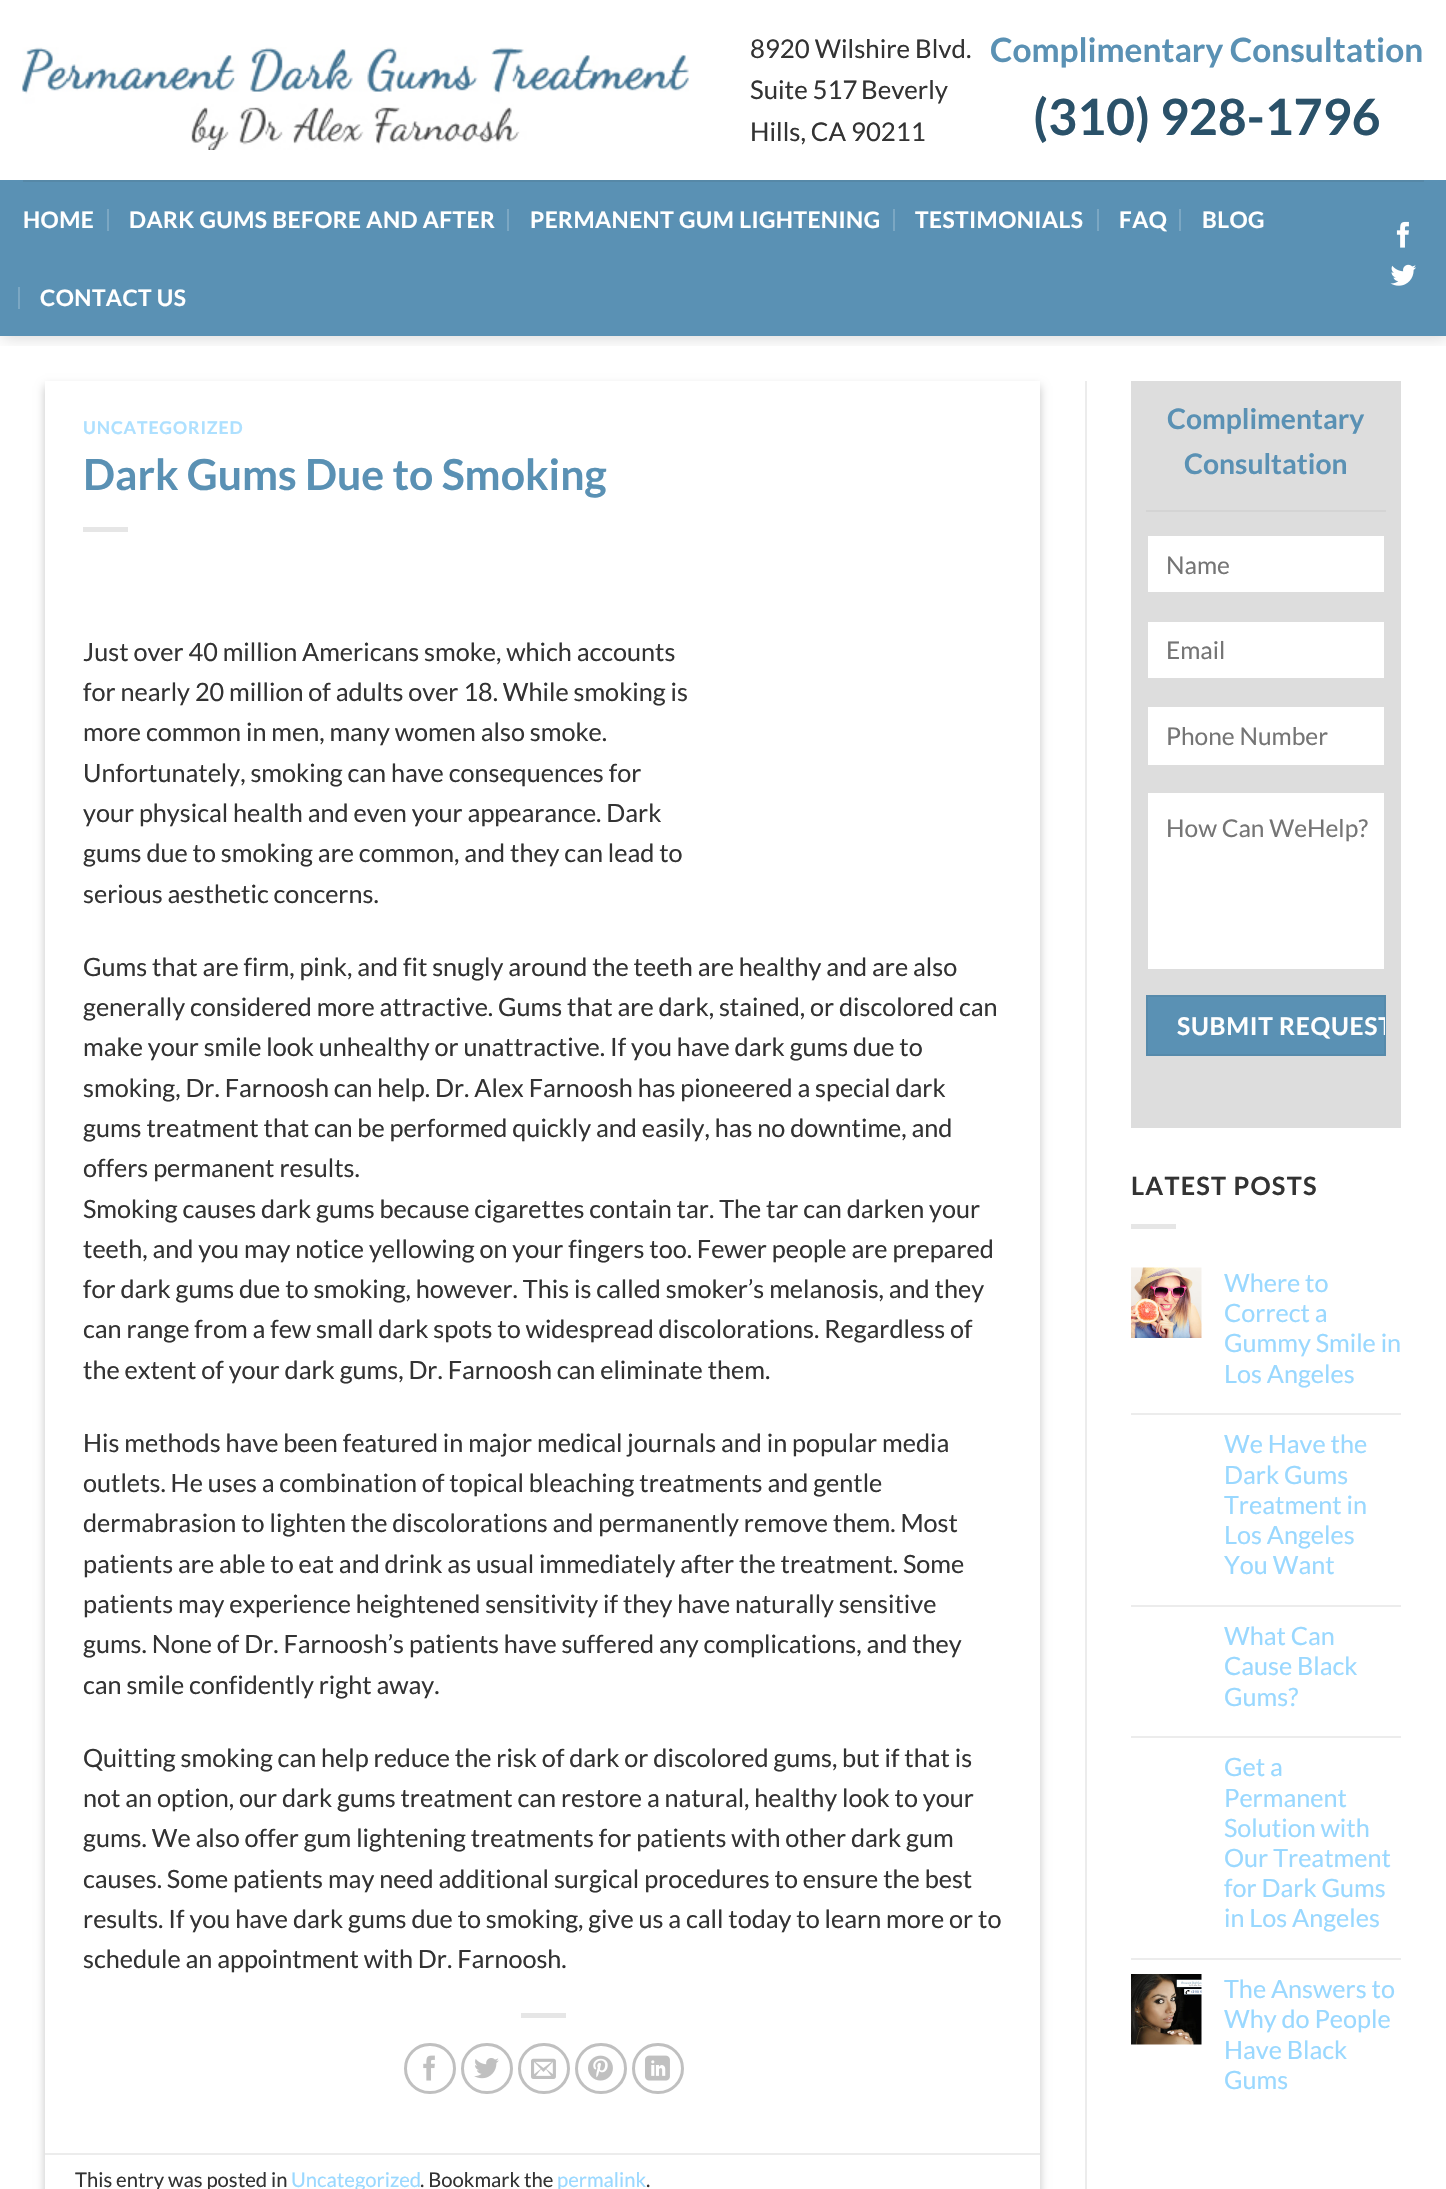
static SkFont makeFont(const char* family, int weight, float size, bool italic = false) {
  SkFontStyle style(weight, SkFontStyle::kNormal_Width,
    italic ? SkFontStyle::kItalic_Slant : SkFontStyle::kUpright_Slant);
  SkFont result(fontMgr->matchFamilyStyle(family, style), size);
  result.setSubpixel(true);
  return result;
}

static void text(SkCanvas* c, const char* s, float x, float y, const SkFont& font, SkColor color) {
  SkPaint ink(SkColor4f::FromColor(color));
  ink.setAntiAlias(true);
  c->drawString(s, x, y, font, ink);
}

static void spacedText(SkCanvas* c, const char* s, float x, float y, const SkFont& font, const SkPaint& ink, float letter, float word) {
  std::vector<SkGlyphID> glyphs(font.countText(s, strlen(s), SkTextEncoding::kUTF8));
  std::vector<float> xs(glyphs.size());
  font.textToGlyphs(s, strlen(s), SkTextEncoding::kUTF8, glyphs);
  font.getXPos(glyphs, xs, x);
  float extra = 0;
  for (size_t i = 0; i < glyphs.size(); i++) {
    xs[i] += extra;
    extra += letter + word * (glyphs[i] == font.unicharToGlyph(' '));
  }
  c->drawTextBlob(SkTextBlob::MakeFromPosHGlyphs(glyphs, xs, y, font), 0, 0, ink);
}

static void box(SkCanvas* c, float l, float t, float r, float b, SkColor color) {
  SkPaint ink(SkColor4f::FromColor(color));
  ink.setAntiAlias(true);
  c->drawRect(SkRect::MakeLTRB(l, t, r, b), ink);
}

static void picture(SkCanvas* c, const char* path, float l, float t, float r, float b) {
  auto image = SkImages::DeferredFromEncodedData(SkData::MakeFromFileName(path));
  c->drawImageRect(image, SkRect::MakeLTRB(l, t, r, b), SkSamplingOptions());
}

void draw(SkCanvas* c) {
  SkPaint paint;
  paint.setAntiAlias(true);
  c->clear(0xffffffff);
  c->save();
  c->clipRect(SkRect::MakeLTRB(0, 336, 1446, 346));
  paint.setColor(0x26000000);
  paint.setMaskFilter(SkMaskFilter::MakeBlur(kNormal_SkBlurStyle, 7.5f));
  c->drawRect(SkRect::MakeLTRB(2, 2, 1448, 338), paint);
  paint.setMaskFilter(nullptr);
  c->restore();
  picture(c, "img_01.png", 22, 47, 689, 150);
  SkFont face1 = makeFont("Lato", 400, 25.75f);
  text(c, "8920 Wilshire Blvd.", 750, 58, face1, 0xff333333);
  text(c, "Suite 517", 750, 99, face1, 0xff333333);
  text(c, "Beverly", 861, 99, face1, 0xff333333);
  text(c, "Hills, CA 90211", 750, 141, face1, 0xff333333);
  SkFont face2 = makeFont("Lato", 700, 33.4f);
  text(c, "Complimentary Consultation", 990, 62, face2, 0xff5a91b4);
  SkFont face3 = makeFont("Lato", 700, 50);
  text(c, "(310) 928-1796", 1033, 135, face3, 0xff2a5169);
  box(c, 0, 180, 1446, 336, 0xff5a91b4);
  box(c, 23, 180, 1424, 182, 0xff5688a7);
  SkFont face4 = makeFont("Lato", 700, 22.7f);
  paint.setColor(0xffffffff);
  spacedText(c, "HOME", 23, 228, face4, paint, 0.45f, 0);
  box(c, 107, 209, 109, 231, 0xff7ba7c3);
  spacedText(c, "DARK GUMS BEFORE AND AFTER", 129, 228, face4, paint, 0.45f, 0);
  box(c, 507, 209, 509, 231, 0xff7ba7c3);
  spacedText(c, "PERMANENT GUM LIGHTENING", 530, 228, face4, paint, 0.45f, 0);
  box(c, 893, 209, 895, 231, 0xff7ba7c3);
  spacedText(c, "TESTIMONIALS", 915, 228, face4, paint, 0.45f, 0);
  box(c, 1097, 209, 1099, 231, 0xff7ba7c3);
  spacedText(c, "FAQ", 1119, 228, face4, paint, 0.45f, 0);
  box(c, 1179, 209, 1181, 231, 0xff7ba7c3);
  spacedText(c, "BLOG", 1202, 228, face4, paint, 0.45f, 0);
  box(c, 18, 287, 20, 309, 0xff7ba7c3);
  spacedText(c, "CONTACT US", 40, 306, face4, paint, 0.45f, 0);
  picture(c, "img_02.png", 1396, 221, 1409, 248);
  picture(c, "img_03.png", 1390, 264, 1416, 286);
  paint.setColor(0x3b000000);
  paint.setMaskFilter(SkMaskFilter::MakeBlur(kNormal_SkBlurStyle, 4.5f));
  c->drawRect(SkRect::MakeLTRB(45, 386, 1040, 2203), paint);
  paint.setMaskFilter(nullptr);
  box(c, 45, 381, 1040, 2189, 0xffffffff);
  SkFont face5 = makeFont("Lato", 700, 17.6f);
  paint.setColor(0xffade0ff);
  spacedText(c, "UNCATEGORIZED", 83, 434, face5, paint, 0.9f, 0);
  SkFont face6 = makeFont("Lato", 700, 42.8f);
  text(c, "Dark Gums Due to Smoking", 83, 490, face6, 0xff5a91b4);
  box(c, 83, 527, 128, 532, 0xffe6e6e6);
  SkFont face7 = makeFont("Lato", 400, 25.2f);
  text(c, "Just over 40 million Americans smoke, which accounts", 83, 661, face7, 0xff333333);
  text(c, "for nearly 20 million of adults over 18. While smoking is", 83, 701, face7, 0xff333333);
  text(c, "more common in men, many women also smoke.", 83, 741, face7, 0xff333333);
  text(c, "Unfortunately, smoking can have consequences for", 83, 782, face7, 0xff333333);
  text(c, "your physical health and even your appearance. Dark", 83, 822, face7, 0xff333333);
  text(c, "gums due to smoking are common, and they can lead to", 83, 862, face7, 0xff333333);
  text(c, "serious aesthetic concerns.", 83, 903, face7, 0xff333333);
  text(c, "Gums that are firm, pink, and fit snugly around the teeth are healthy and are also", 83, 976, face7, 0xff333333);
  text(c, "generally considered more attractive. Gums that are dark, stained, or discolored can", 83, 1016, face7, 0xff333333);
  text(c, "make your smile look unhealthy or unattractive. If you have dark gums due to", 83, 1056, face7, 0xff333333);
  text(c, "smoking, Dr. Farnoosh can help. Dr. Alex Farnoosh has pioneered a special dark", 83, 1097, face7, 0xff333333);
  text(c, "gums treatment that can be performed quickly and easily, has no downtime, and", 83, 1137, face7, 0xff333333);
  text(c, "offers permanent results.", 83, 1177, face7, 0xff333333);
  text(c, "Smoking causes dark gums because cigarettes contain tar. The tar can darken your", 83, 1218, face7, 0xff333333);
  text(c, "teeth, and you may notice yellowing on your fingers too. Fewer people are prepared", 83, 1258, face7, 0xff333333);
  text(c, "for dark gums due to smoking, however. This is called smoker’s melanosis, and they", 83, 1298, face7, 0xff333333);
  text(c, "can range from a few small dark spots to widespread discolorations. Regardless of", 83, 1338, face7, 0xff333333);
  text(c, "the extent of your dark gums, Dr. Farnoosh can eliminate them.", 83, 1379, face7, 0xff333333);
  text(c, "His methods have been featured in major medical journals and in popular media", 83, 1452, face7, 0xff333333);
  text(c, "outlets. He uses a combination of topical bleaching treatments and gentle", 83, 1492, face7, 0xff333333);
  text(c, "dermabrasion to lighten the discolorations and permanently remove them. Most", 83, 1532, face7, 0xff333333);
  text(c, "patients are able to eat and drink as usual immediately after the treatment. Some", 83, 1573, face7, 0xff333333);
  text(c, "patients may experience heightened sensitivity if they have naturally sensitive", 83, 1613, face7, 0xff333333);
  text(c, "gums. None of Dr. Farnoosh’s patients have suffered any complications, and they", 83, 1653, face7, 0xff333333);
  text(c, "can smile confidently right away.", 83, 1694, face7, 0xff333333);
  text(c, "Quitting smoking can help reduce the risk of dark or discolored gums, but if that is", 83, 1767, face7, 0xff333333);
  text(c, "not an option, our dark gums treatment can restore a natural, healthy look to your", 83, 1807, face7, 0xff333333);
  text(c, "gums. We also offer gum lightening treatments for patients with other dark gum", 83, 1847, face7, 0xff333333);
  text(c, "causes. Some patients may need additional surgical procedures to ensure the best", 83, 1888, face7, 0xff333333);
  text(c, "results. If you have dark gums due to smoking, give us a call today to learn more or to", 83, 1928, face7, 0xff333333);
  text(c, "schedule an appointment with Dr. Farnoosh.", 83, 1968, face7, 0xff333333);
  box(c, 521, 2013, 566, 2018, 0xffe6e6e6);
  paint.setStyle(SkPaint::kStroke_Style);
  paint.setStrokeWidth(3);
  paint.setColor(0xffc0c0c0);
  c->drawRoundRect(SkRect::MakeLTRB(405.5f, 2044.5f, 454.5f, 2092.5f), 24, 24, paint);
  picture(c, "img_04.png", 423, 2055, 435, 2081);
  c->drawRoundRect(SkRect::MakeLTRB(462.5f, 2044.5f, 511.5f, 2092.5f), 24, 24, paint);
  picture(c, "img_05.png", 474, 2058, 499, 2079);
  c->drawRoundRect(SkRect::MakeLTRB(519.5f, 2044.5f, 568.5f, 2092.5f), 24, 24, paint);
  picture(c, "img_06.png", 531, 2058, 556, 2079);
  c->drawRoundRect(SkRect::MakeLTRB(576.5f, 2044.5f, 625.5f, 2092.5f), 24, 24, paint);
  picture(c, "img_07.png", 588, 2055, 613, 2081);
  c->drawRoundRect(SkRect::MakeLTRB(633.5f, 2044.5f, 682.5f, 2092.5f), 24, 24, paint);
  picture(c, "img_08.png", 645, 2055, 670, 2081);
  box(c, 45, 2153, 1040, 2155, 0xffececec);
  SkFont face8 = makeFont("Lato", 400, 20.25f);
  text(c, "This entry was posted in", 75, 2187, face8, 0xff333333);
  text(c, "Uncategorized", 291, 2187, face8, 0xff99d8ff);
  text(c, ". Bookmark the", 420, 2187, face8, 0xff333333);
  text(c, "permalink", 557, 2187, face8, 0xff99d8ff);
  text(c, ".", 646, 2187, face8, 0xff333333);
  box(c, 1085, 381, 1087, 2189, 0xffececec);
  box(c, 1131, 381, 1401, 1128, 0xffdddddd);
  SkFont face9 = makeFont("Lato", 700, 28.25f);
  text(c, "Complimentary", 1167, 429, face9, 0xff5a91b4);
  text(c, "Consultation", 1184, 474, face9, 0xff5a91b4);
  box(c, 1146, 510, 1386, 512, 0xffd4d4d4);
  box(c, 1148, 536, 1384, 592, 0xffffffff);
  SkFont face10 = makeFont("Lato", 400, 24.5f);
  text(c, "Name", 1166, 574, face10, 0xff757575);
  box(c, 1148, 622, 1384, 678, 0xffffffff);
  text(c, "Email", 1166, 659, face10, 0xff757575);
  box(c, 1148, 707, 1384, 765, 0xffffffff);
  text(c, "Phone Number", 1166, 745, face10, 0xff757575);
  box(c, 1148, 793, 1384, 969, 0xffffffff);
  text(c, "How Can WeHelp?", 1166, 837, face10, 0xff757575);
  paint.setStyle(SkPaint::kFill_Style);
  paint.setColor(0xff5a91b4);
  c->drawRect(SkRect::MakeLTRB(1147, 996, 1385, 1055), paint);
  paint.setStyle(SkPaint::kStroke_Style);
  paint.setStrokeWidth(2);
  paint.setColor(0xff568aab);
  c->drawRect(SkRect::MakeLTRB(1147, 996, 1385, 1055), paint);
  c->save();
  c->clipRect(SkRect::MakeLTRB(1148, 996, 1385, 1055));
  SkFont face11 = makeFont("Lato", 700, 24.5f);
  paint.setStyle(SkPaint::kFill_Style);
  paint.setColor(0xffffffff);
  spacedText(c, "SUBMIT REQUEST", 1177, 1035, face11, paint, 0.75f, 0);
  c->restore();
  SkFont face12 = makeFont("Lato", 700, 25.2f);
  paint.setColor(0xff333333);
  spacedText(c, "LATEST POSTS", 1131, 1195, face12, paint, 1.25f, 0);
  box(c, 1131, 1224, 1176, 1229, 0xffe6e6e6);
  picture(c, "img_09.png", 1131, 1267, 1202, 1338);
  text(c, "Where to", 1224, 1292, face7, 0xff99d8ff);
  text(c, "Correct a", 1224, 1322, face7, 0xff99d8ff);
  text(c, "Gummy Smile in", 1224, 1352, face7, 0xff99d8ff);
  text(c, "Los Angeles", 1224, 1383, face7, 0xff99d8ff);
  box(c, 1131, 1413, 1401, 1415, 0xffececec);
  text(c, "We Have the", 1224, 1453, face7, 0xff99d8ff);
  text(c, "Dark Gums", 1224, 1484, face7, 0xff99d8ff);
  text(c, "Treatment in", 1224, 1514, face7, 0xff99d8ff);
  text(c, "Los Angeles", 1224, 1544, face7, 0xff99d8ff);
  text(c, "You Want", 1224, 1574, face7, 0xff99d8ff);
  box(c, 1131, 1605, 1401, 1607, 0xffececec);
  text(c, "What Can", 1224, 1645, face7, 0xff99d8ff);
  text(c, "Cause Black", 1224, 1675, face7, 0xff99d8ff);
  text(c, "Gums?", 1224, 1706, face7, 0xff99d8ff);
  box(c, 1131, 1736, 1401, 1738, 0xffececec);
  text(c, "Get a", 1224, 1776, face7, 0xff99d8ff);
  text(c, "Permanent", 1224, 1807, face7, 0xff99d8ff);
  text(c, "Solution with", 1224, 1837, face7, 0xff99d8ff);
  text(c, "Our Treatment", 1224, 1867, face7, 0xff99d8ff);
  text(c, "for Dark Gums", 1224, 1897, face7, 0xff99d8ff);
  text(c, "in Los Angeles", 1224, 1927, face7, 0xff99d8ff);
  box(c, 1131, 1958, 1401, 1960, 0xffececec);
  picture(c, "img_10.png", 1131, 1974, 1202, 2045);
  text(c, "The Answers to", 1224, 1998, face7, 0xff99d8ff);
  text(c, "Why do People", 1224, 2028, face7, 0xff99d8ff);
  text(c, "Have Black", 1224, 2059, face7, 0xff99d8ff);
  text(c, "Gums", 1224, 2089, face7, 0xff99d8ff);
}
